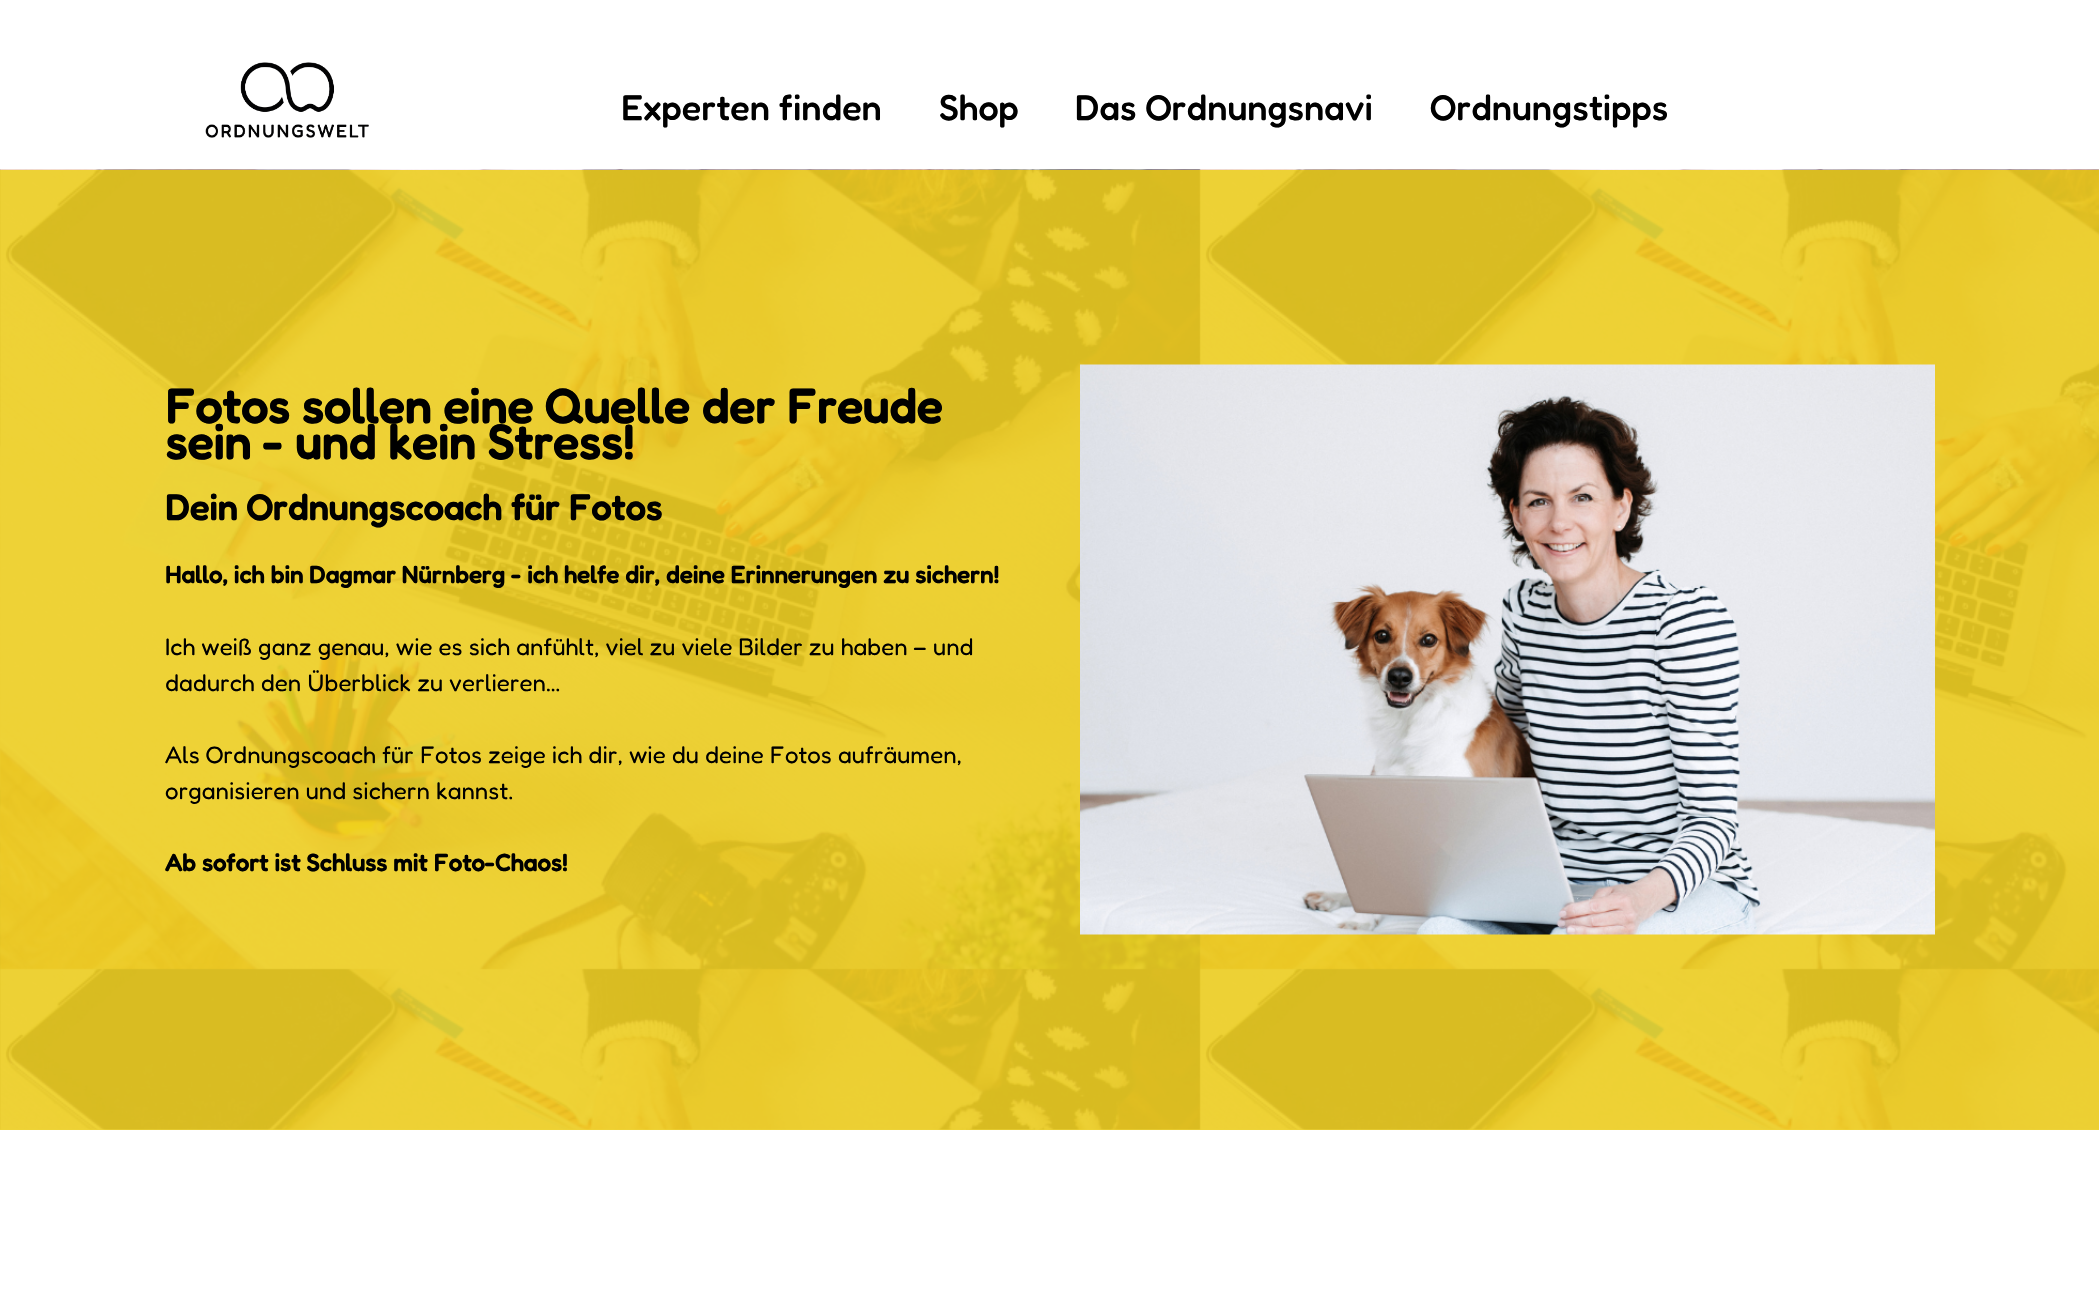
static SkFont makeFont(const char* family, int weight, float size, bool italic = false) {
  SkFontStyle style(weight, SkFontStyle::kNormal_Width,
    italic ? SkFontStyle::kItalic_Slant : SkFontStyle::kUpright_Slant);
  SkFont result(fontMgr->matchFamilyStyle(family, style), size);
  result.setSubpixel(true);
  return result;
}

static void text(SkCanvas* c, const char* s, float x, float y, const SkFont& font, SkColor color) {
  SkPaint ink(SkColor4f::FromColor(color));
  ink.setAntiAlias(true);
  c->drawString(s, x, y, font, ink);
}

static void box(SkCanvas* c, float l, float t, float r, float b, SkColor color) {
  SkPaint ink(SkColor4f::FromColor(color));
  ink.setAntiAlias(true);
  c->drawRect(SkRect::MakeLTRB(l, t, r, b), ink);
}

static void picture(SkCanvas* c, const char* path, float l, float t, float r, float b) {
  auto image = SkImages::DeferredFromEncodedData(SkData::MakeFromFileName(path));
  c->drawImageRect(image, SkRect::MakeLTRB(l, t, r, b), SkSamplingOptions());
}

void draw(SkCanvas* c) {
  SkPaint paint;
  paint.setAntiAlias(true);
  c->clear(0xffffffff);
  box(c, 0, 1129, 2099, 1130, 0xffefd437);
  picture(c, "img_01.png", 205, 62, 369, 138);
  SkFont face1 = makeFont("Fredoka", 500, 36);
  text(c, "Experten finden", 621, 120, face1, 0xff000000);
  text(c, "Shop", 939, 120, face1, 0xff000000);
  text(c, "Das Ordnungsnavi", 1075, 120, face1, 0xff000000);
  text(c, "Ordnungstipps", 1430, 120, face1, 0xff000000);
  picture(c, "img_02.png", 0, 169, 2099, 1130);
  SkFont face2 = makeFont("Fredoka", 700, 48);
  text(c, "Fotos sollen eine Quelle der Freude", 165, 423, face2, 0xff000000);
  text(c, "sein - und kein Stress!", 165, 459, face2, 0xff000000);
  SkFont face3 = makeFont("Fredoka", 700, 36);
  text(c, "Dein Ordnungscoach für Fotos", 165, 520, face3, 0xff000000);
  SkFont face4 = makeFont("Fredoka", 700, 24);
  text(c, "Hallo, ich bin Dagmar Nürnberg - ich helfe dir, deine Erinnerungen zu sichern!", 165, 583, face4, 0xff000000);
  SkFont face5 = makeFont("Fredoka", 400, 24);
  text(c, "Ich weiß ganz genau, wie es sich anfühlt, viel zu viele Bilder zu haben – und", 165, 655, face5, 0xff000000);
  text(c, "dadurch den Überblick zu verlieren…", 165, 691, face5, 0xff000000);
  text(c, "Als Ordnungscoach für Fotos zeige ich dir, wie du deine Fotos aufräumen,", 165, 763, face5, 0xff000000);
  text(c, "organisieren und sichern kannst.", 165, 799, face5, 0xff000000);
  text(c, "Ab sofort ist Schluss mit Foto-Chaos!", 165, 871, face4, 0xff000000);
  picture(c, "img_03.png", 1080, 364, 1935, 935);
}
